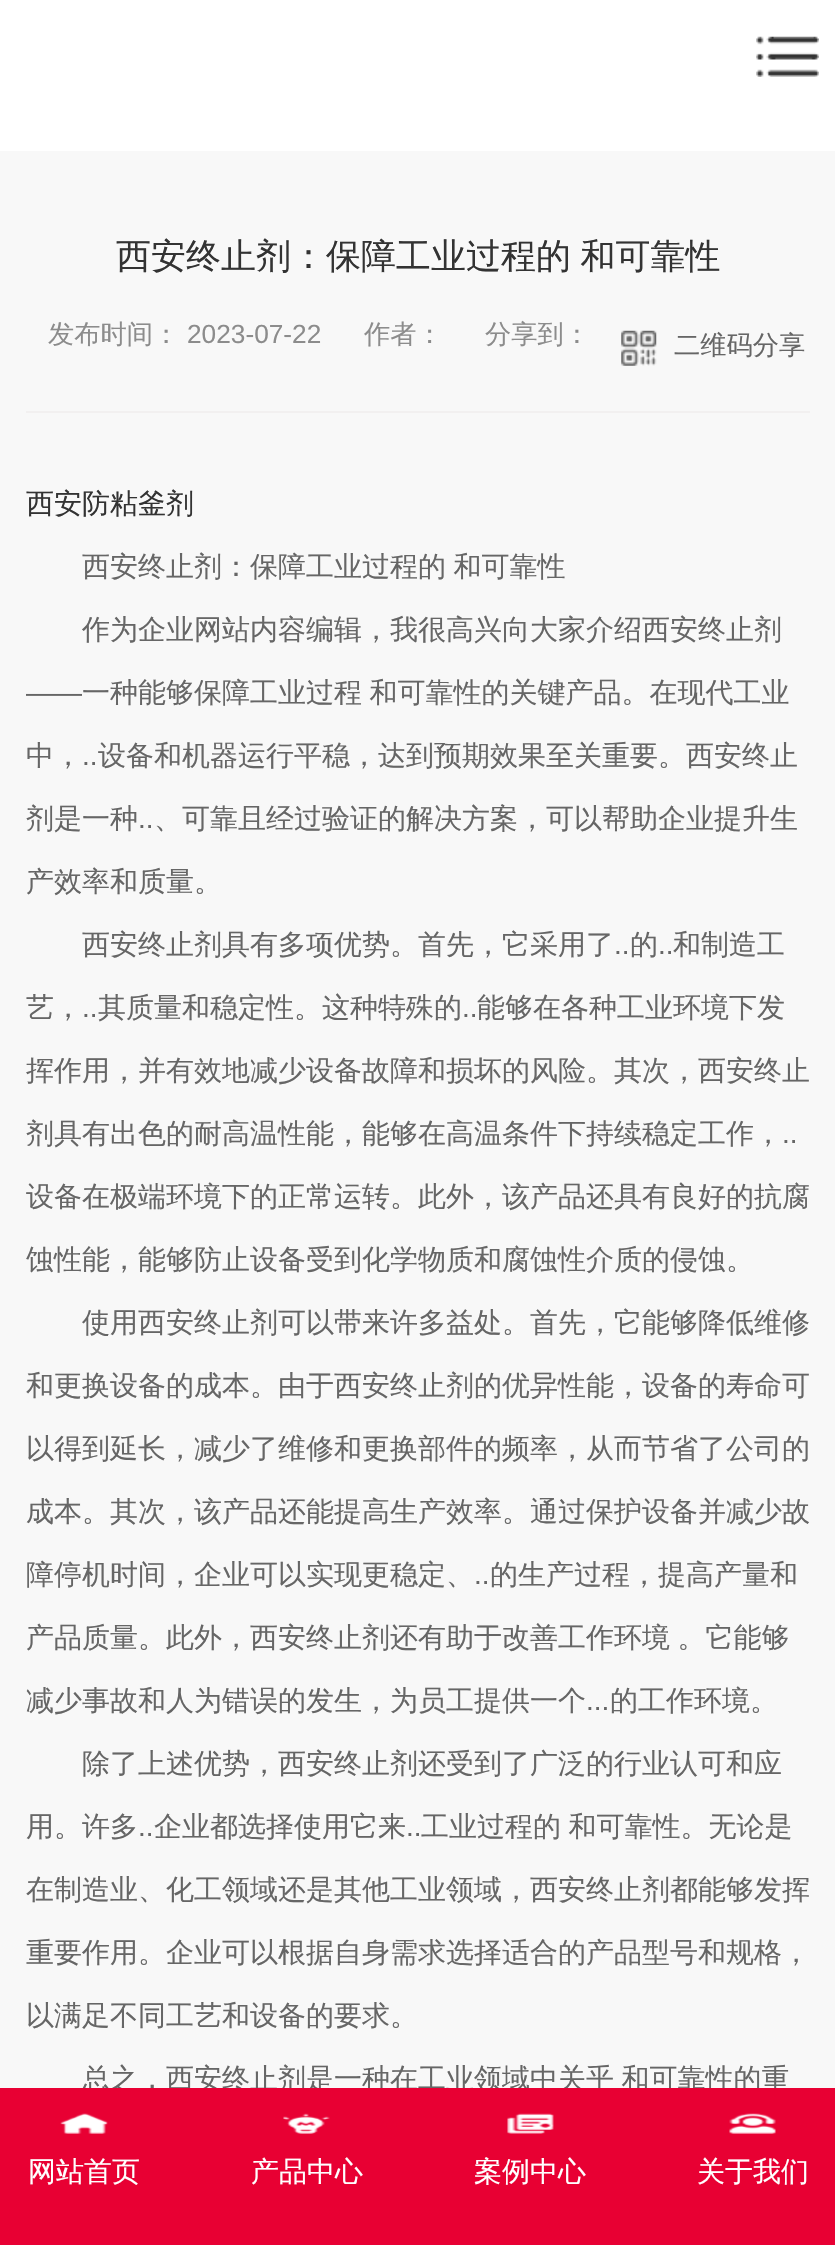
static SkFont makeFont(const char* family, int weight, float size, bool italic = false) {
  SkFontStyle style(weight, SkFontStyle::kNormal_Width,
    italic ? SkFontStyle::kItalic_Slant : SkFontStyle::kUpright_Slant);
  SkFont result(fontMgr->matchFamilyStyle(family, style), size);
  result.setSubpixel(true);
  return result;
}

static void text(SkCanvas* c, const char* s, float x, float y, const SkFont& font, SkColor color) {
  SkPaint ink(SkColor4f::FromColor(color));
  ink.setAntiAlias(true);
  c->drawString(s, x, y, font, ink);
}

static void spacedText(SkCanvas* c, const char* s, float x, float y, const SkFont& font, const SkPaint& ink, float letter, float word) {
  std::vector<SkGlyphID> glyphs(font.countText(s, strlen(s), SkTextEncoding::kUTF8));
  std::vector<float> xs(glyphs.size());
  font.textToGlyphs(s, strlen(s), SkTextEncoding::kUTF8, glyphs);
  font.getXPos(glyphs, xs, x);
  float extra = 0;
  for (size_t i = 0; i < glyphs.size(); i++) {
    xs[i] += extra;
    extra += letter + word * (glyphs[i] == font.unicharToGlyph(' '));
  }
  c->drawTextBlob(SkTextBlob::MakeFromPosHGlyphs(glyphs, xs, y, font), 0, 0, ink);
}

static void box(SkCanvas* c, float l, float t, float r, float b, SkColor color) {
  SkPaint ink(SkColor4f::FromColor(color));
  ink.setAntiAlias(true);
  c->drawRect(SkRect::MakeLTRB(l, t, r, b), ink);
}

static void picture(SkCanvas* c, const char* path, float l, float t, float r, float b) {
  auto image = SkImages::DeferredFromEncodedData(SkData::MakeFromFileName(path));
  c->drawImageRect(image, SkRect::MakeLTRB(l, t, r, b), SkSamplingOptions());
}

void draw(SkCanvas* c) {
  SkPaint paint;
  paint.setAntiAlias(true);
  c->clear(0xffffffff);
  picture(c, "img_01.png", 756, 36, 819, 77);
  box(c, 0, 151, 835, 2088, 0xfff8f8f8);
  SkFont face1 = makeFont("WenQuanYi Zen Hei", 500, 35);
  paint.setColor(0xff333333);
  spacedText(c, "西安终止剂：保障工业过程的 和可靠性", 116, 268, face1, paint, 0, -1);
  box(c, 26, 411, 810, 413, 0xfff2f0f0);
  SkFont face2 = makeFont("WenQuanYi Zen Hei", 500, 26.25f);
  text(c, "发布时间：", 48, 343, face2, 0xff8c8c8c);
  SkFont face3 = makeFont("Liberation Sans", 400, 26.25f);
  text(c, "2023-07-22", 187, 343, face3, 0xff8c8c8c);
  text(c, "作者：", 364, 343, face2, 0xff8c8c8c);
  text(c, "分享到：", 485, 343, face2, 0xff8c8c8c);
  picture(c, "img_02.png", 621, 330, 657, 366);
  text(c, "二维码分享", 674, 354, face2, 0xff666666);
  SkFont face4 = makeFont("WenQuanYi Zen Hei", 500, 28);
  text(c, "西安防粘釜剂", 26, 513, face4, 0xff333333);
  paint.setColor(0xff666666);
  spacedText(c, "西安终止剂：保障工业过程的 和可靠性", 82, 576, face4, paint, 0, -1);
  text(c, "作为企业网站内容编辑，我很高兴向大家介绍西安终止剂", 82, 639, face4, 0xff666666);
  SkFont face5 = makeFont("Liberation Sans", 400, 28);
  text(c, "——", 26, 702, face5, 0xff666666);
  spacedText(c, "一种能够保障工业过程 和可靠性的关键产品。在现代工业", 82, 702, face4, paint, 0, -1);
  text(c, "中，", 26, 765, face4, 0xff666666);
  text(c, "..", 82, 765, face5, 0xff666666);
  text(c, "设备和机器运行平稳，达到预期效果至关重要。西安终止", 98, 765, face4, 0xff666666);
  text(c, "剂是一种", 26, 828, face4, 0xff666666);
  text(c, "..", 138, 828, face5, 0xff666666);
  text(c, "、可靠且经过验证的解决方案，可以帮助企业提升生", 154, 828, face4, 0xff666666);
  text(c, "产效率和质量。", 26, 891, face4, 0xff666666);
  text(c, "西安终止剂具有多项优势。首先，它采用了", 82, 954, face4, 0xff666666);
  text(c, "..", 614, 954, face5, 0xff666666);
  text(c, "的", 630, 954, face4, 0xff666666);
  text(c, "..", 658, 954, face5, 0xff666666);
  text(c, "和制造工", 673, 954, face4, 0xff666666);
  text(c, "艺，", 26, 1017, face4, 0xff666666);
  text(c, "..", 82, 1017, face5, 0xff666666);
  text(c, "其质量和稳定性。这种特殊的", 98, 1017, face4, 0xff666666);
  text(c, "..", 462, 1017, face5, 0xff666666);
  text(c, "能够在各种工业环境下发", 477, 1017, face4, 0xff666666);
  text(c, "挥作用，并有效地减少设备故障和损坏的风险。其次，西安终止", 26, 1080, face4, 0xff666666);
  text(c, "剂具有出色的耐高温性能，能够在高温条件下持续稳定工作，", 26, 1143, face4, 0xff666666);
  text(c, "..", 782, 1143, face5, 0xff666666);
  text(c, "设备在极端环境下的正常运转。此外，该产品还具有良好的抗腐", 26, 1206, face4, 0xff666666);
  text(c, "蚀性能，能够防止设备受到化学物质和腐蚀性介质的侵蚀。", 26, 1269, face4, 0xff666666);
  text(c, "使用西安终止剂可以带来许多益处。首先，它能够降低维修", 82, 1332, face4, 0xff666666);
  text(c, "和更换设备的成本。由于西安终止剂的优异性能，设备的寿命可", 26, 1395, face4, 0xff666666);
  text(c, "以得到延长，减少了维修和更换部件的频率，从而节省了公司的", 26, 1458, face4, 0xff666666);
  text(c, "成本。其次，该产品还能提高生产效率。通过保护设备并减少故", 26, 1521, face4, 0xff666666);
  text(c, "障停机时间，企业可以实现更稳定、", 26, 1584, face4, 0xff666666);
  text(c, "..", 474, 1584, face5, 0xff666666);
  text(c, "的生产过程，提高产量和", 490, 1584, face4, 0xff666666);
  spacedText(c, "产品质量。此外，西安终止剂还有助于改善工作环境 。它能够", 26, 1647, face4, paint, 0, -1);
  text(c, "减少事故和人为错误的发生，为员工提供一个", 26, 1710, face4, 0xff666666);
  text(c, "...", 586, 1710, face5, 0xff666666);
  text(c, "的工作环境。", 610, 1710, face4, 0xff666666);
  text(c, "除了上述优势，西安终止剂还受到了广泛的行业认可和应", 82, 1773, face4, 0xff666666);
  text(c, "用。许多", 26, 1836, face4, 0xff666666);
  text(c, "..", 138, 1836, face5, 0xff666666);
  text(c, "企业都选择使用它来", 154, 1836, face4, 0xff666666);
  text(c, "..", 406, 1836, face5, 0xff666666);
  spacedText(c, "工业过程的 和可靠性。无论是", 421, 1836, face4, paint, 0, -1);
  text(c, "在制造业、化工领域还是其他工业领域，西安终止剂都能够发挥", 26, 1899, face4, 0xff666666);
  text(c, "重要作用。企业可以根据自身需求选择适合的产品型号和规格，", 26, 1962, face4, 0xff666666);
  text(c, "以满足不同工艺和设备的要求。", 26, 2025, face4, 0xff666666);
  spacedText(c, "总之，西安终止剂是一种在工业领域中关乎 和可靠性的重", 82, 2088, face4, paint, 0, -1);
  box(c, 0, 2088, 835, 2245, 0xffe80033);
  picture(c, "img_03.png", 60, 2113, 108, 2134);
  text(c, "网站首页", 28, 2181, face4, 0xffffffff);
  picture(c, "img_04.png", 283, 2113, 330, 2134);
  text(c, "产品中心", 251, 2181, face4, 0xffffffff);
  picture(c, "img_05.png", 507, 2113, 554, 2134);
  text(c, "案例中心", 474, 2181, face4, 0xffffffff);
  picture(c, "img_06.png", 729, 2113, 776, 2134);
  text(c, "关于我们", 697, 2181, face4, 0xffffffff);
}
